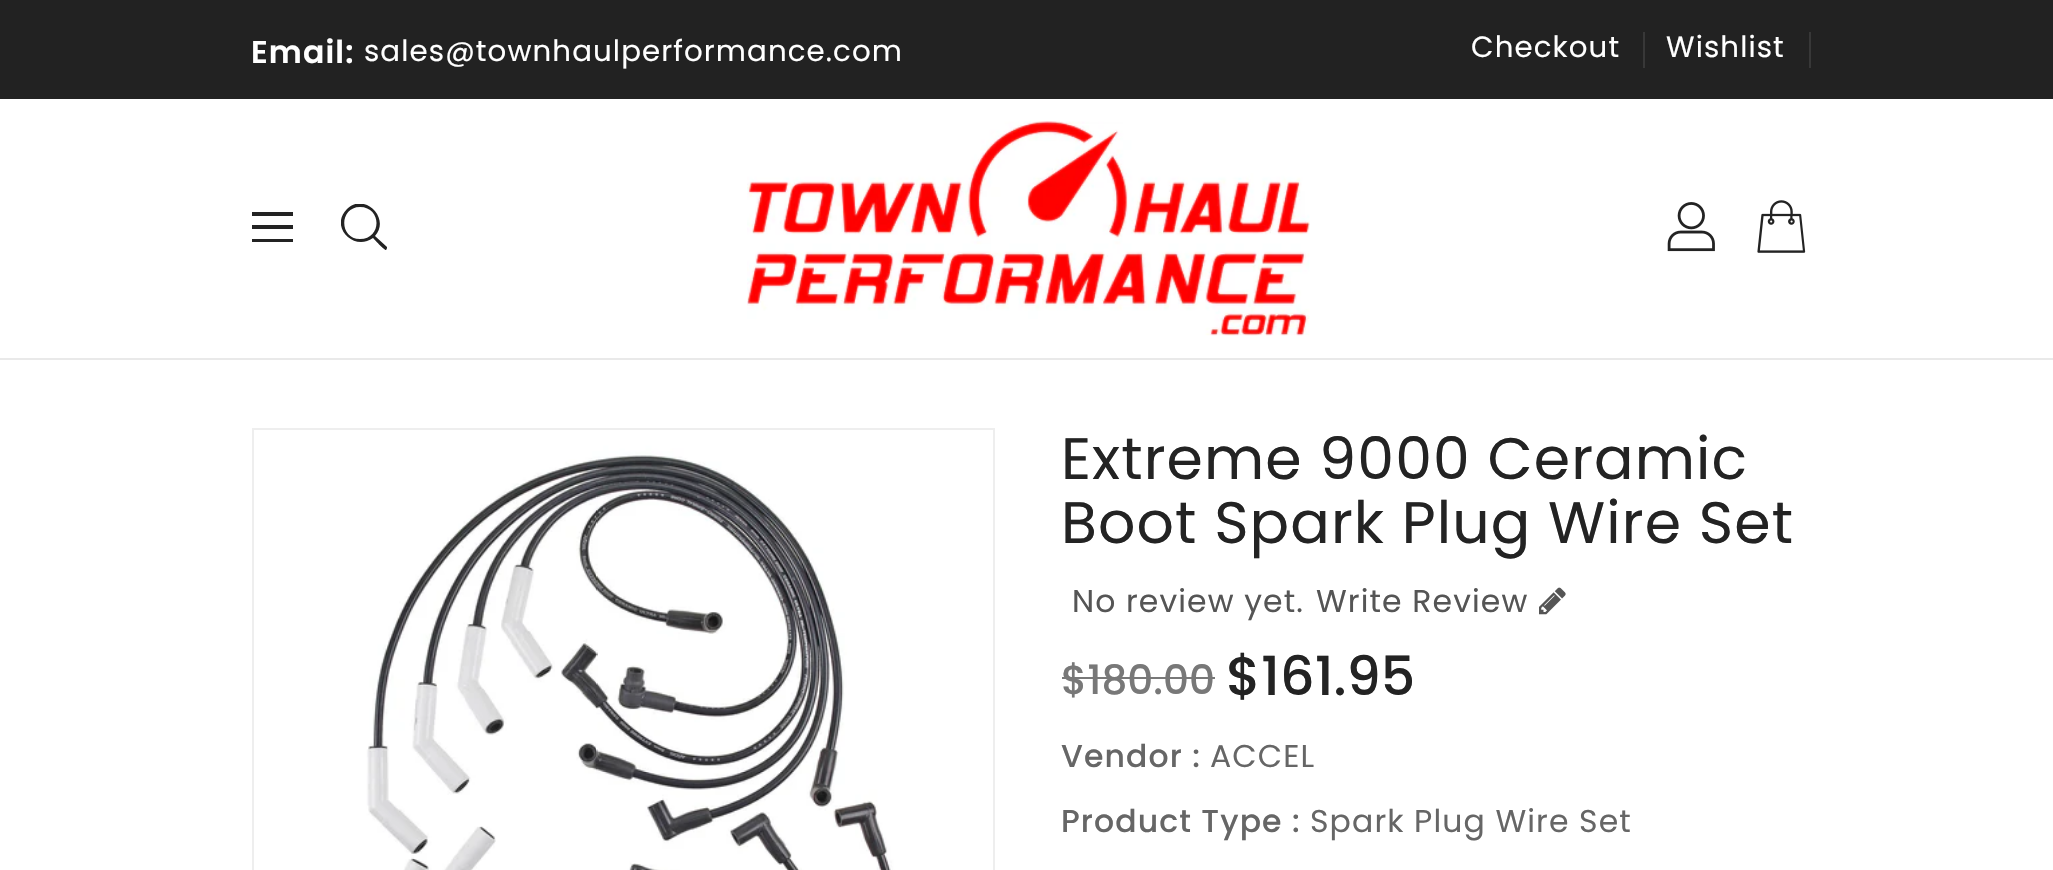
static SkFont makeFont(const char* family, int weight, float size, bool italic = false) {
  SkFontStyle style(weight, SkFontStyle::kNormal_Width,
    italic ? SkFontStyle::kItalic_Slant : SkFontStyle::kUpright_Slant);
  SkFont result(fontMgr->matchFamilyStyle(family, style), size);
  result.setSubpixel(true);
  return result;
}

static void text(SkCanvas* c, const char* s, float x, float y, const SkFont& font, SkColor color) {
  SkPaint ink(SkColor4f::FromColor(color));
  ink.setAntiAlias(true);
  c->drawString(s, x, y, font, ink);
}

static void spacedText(SkCanvas* c, const char* s, float x, float y, const SkFont& font, const SkPaint& ink, float letter, float word) {
  std::vector<SkGlyphID> glyphs(font.countText(s, strlen(s), SkTextEncoding::kUTF8));
  std::vector<float> xs(glyphs.size());
  font.textToGlyphs(s, strlen(s), SkTextEncoding::kUTF8, glyphs);
  font.getXPos(glyphs, xs, x);
  float extra = 0;
  for (size_t i = 0; i < glyphs.size(); i++) {
    xs[i] += extra;
    extra += letter + word * (glyphs[i] == font.unicharToGlyph(' '));
  }
  c->drawTextBlob(SkTextBlob::MakeFromPosHGlyphs(glyphs, xs, y, font), 0, 0, ink);
}

static void box(SkCanvas* c, float l, float t, float r, float b, SkColor color) {
  SkPaint ink(SkColor4f::FromColor(color));
  ink.setAntiAlias(true);
  c->drawRect(SkRect::MakeLTRB(l, t, r, b), ink);
}

static void picture(SkCanvas* c, const char* path, float l, float t, float r, float b) {
  auto image = SkImages::DeferredFromEncodedData(SkData::MakeFromFileName(path));
  c->drawImageRect(image, SkRect::MakeLTRB(l, t, r, b), SkSamplingOptions());
}

void draw(SkCanvas* c) {
  SkPaint paint;
  paint.setAntiAlias(true);
  c->clear(0xffffffff);
  box(c, 0, 0, 2053, 99, 0xff222222);
  SkFont face1 = makeFont("Poppins", 600, 31.5f);
  paint.setColor(0xffffffff);
  spacedText(c, "Email:", 251, 63, face1, paint, 1.1f, 0);
  SkFont face2 = makeFont("Poppins", 400, 29.25f);
  spacedText(c, "sales@townhaulperformance.com", 364, 61, face2, paint, 1.1f, 0);
  spacedText(c, "Checkout", 1471, 57, face2, paint, 1.1f, 0);
  box(c, 1643, 32, 1645, 68, 0xff383838);
  spacedText(c, "Wishlist", 1666, 57, face2, paint, 1.1f, 0);
  box(c, 1809, 32, 1811, 68, 0xff383838);
  box(c, 0, 358, 2053, 360, 0xffe9e9e9);
  box(c, 252, 212, 293, 216, 0xff232323);
  box(c, 252, 225, 293, 229, 0xff232323);
  box(c, 252, 239, 293, 242, 0xff232323);
  c->save();
  c->clipRect(SkRect::MakeLTRB(341, 204, 410, 272));
  paint.setColor(0xff232323);
  c->drawPath(SkPathBuilder(SkPathFillType::kEvenOdd).moveTo(387, 247).lineTo(375, 236).cubicTo(391, 218, 364, 192, 347, 209).cubicTo(329, 227, 354, 252, 373, 238).cubicTo(374, 239, 384, 250, 386, 250).cubicTo(387, 249, 387, 248, 387, 247).close().moveTo(360, 239).cubicTo(339, 239, 339, 207, 360, 207).cubicTo(382, 207, 382, 239, 360, 239).close().detach(), paint);
  c->restore();
  picture(c, "img_01.png", 747, 121, 1310, 336);
  picture(c, "img_02.png", 1667, 202, 1715, 252);
  picture(c, "img_03.png", 1757, 200, 1806, 253);
  paint.setStyle(SkPaint::kStroke_Style);
  paint.setStrokeWidth(2);
  paint.setColor(0xffeeeeee);
  c->drawRect(SkRect::MakeLTRB(253, 429, 994, 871), paint);
  picture(c, "img_04.png", 254, 430, 992, 870);
  SkFont face3 = makeFont("Poppins", 400, 58.5f);
  paint.setStyle(SkPaint::kFill_Style);
  paint.setColor(0xff232323);
  spacedText(c, "Extreme 9000 Ceramic", 1061, 479, face3, paint, 1.1f, 0);
  spacedText(c, "Boot Spark Plug Wire Set", 1061, 543, face3, paint, 1.1f, 0);
  SkFont face4 = makeFont("Poppins", 400, 31.5f);
  paint.setColor(0xff555555);
  spacedText(c, "No review yet.", 1072, 612, face4, paint, 1.1f, 0);
  spacedText(c, "Write Review", 1316, 612, face4, paint, 1.1f, 0);
  picture(c, "img_05.png", 1539, 587, 1566, 615);
  SkFont face5 = makeFont("Poppins", 500, 40.5f);
  text(c, "$180.00", 1061, 694, face5, 0xff787878);
  box(c, 1062, 677, 1215, 679, 0xff787878);
  SkFont face6 = makeFont("Poppins", 500, 54);
  text(c, "$161.95", 1226, 695, face6, 0xff232323);
  SkFont face7 = makeFont("Poppins", 500, 31.5f);
  paint.setColor(0xff666666);
  spacedText(c, "Vendor :", 1061, 767, face7, paint, 1.1f, 0);
  spacedText(c, "ACCEL", 1210, 767, face4, paint, 1.1f, 0);
  spacedText(c, "Product Type :", 1061, 832, face7, paint, 1.1f, 0);
  spacedText(c, "Spark Plug Wire Set", 1310, 832, face4, paint, 1.1f, 0);
}
